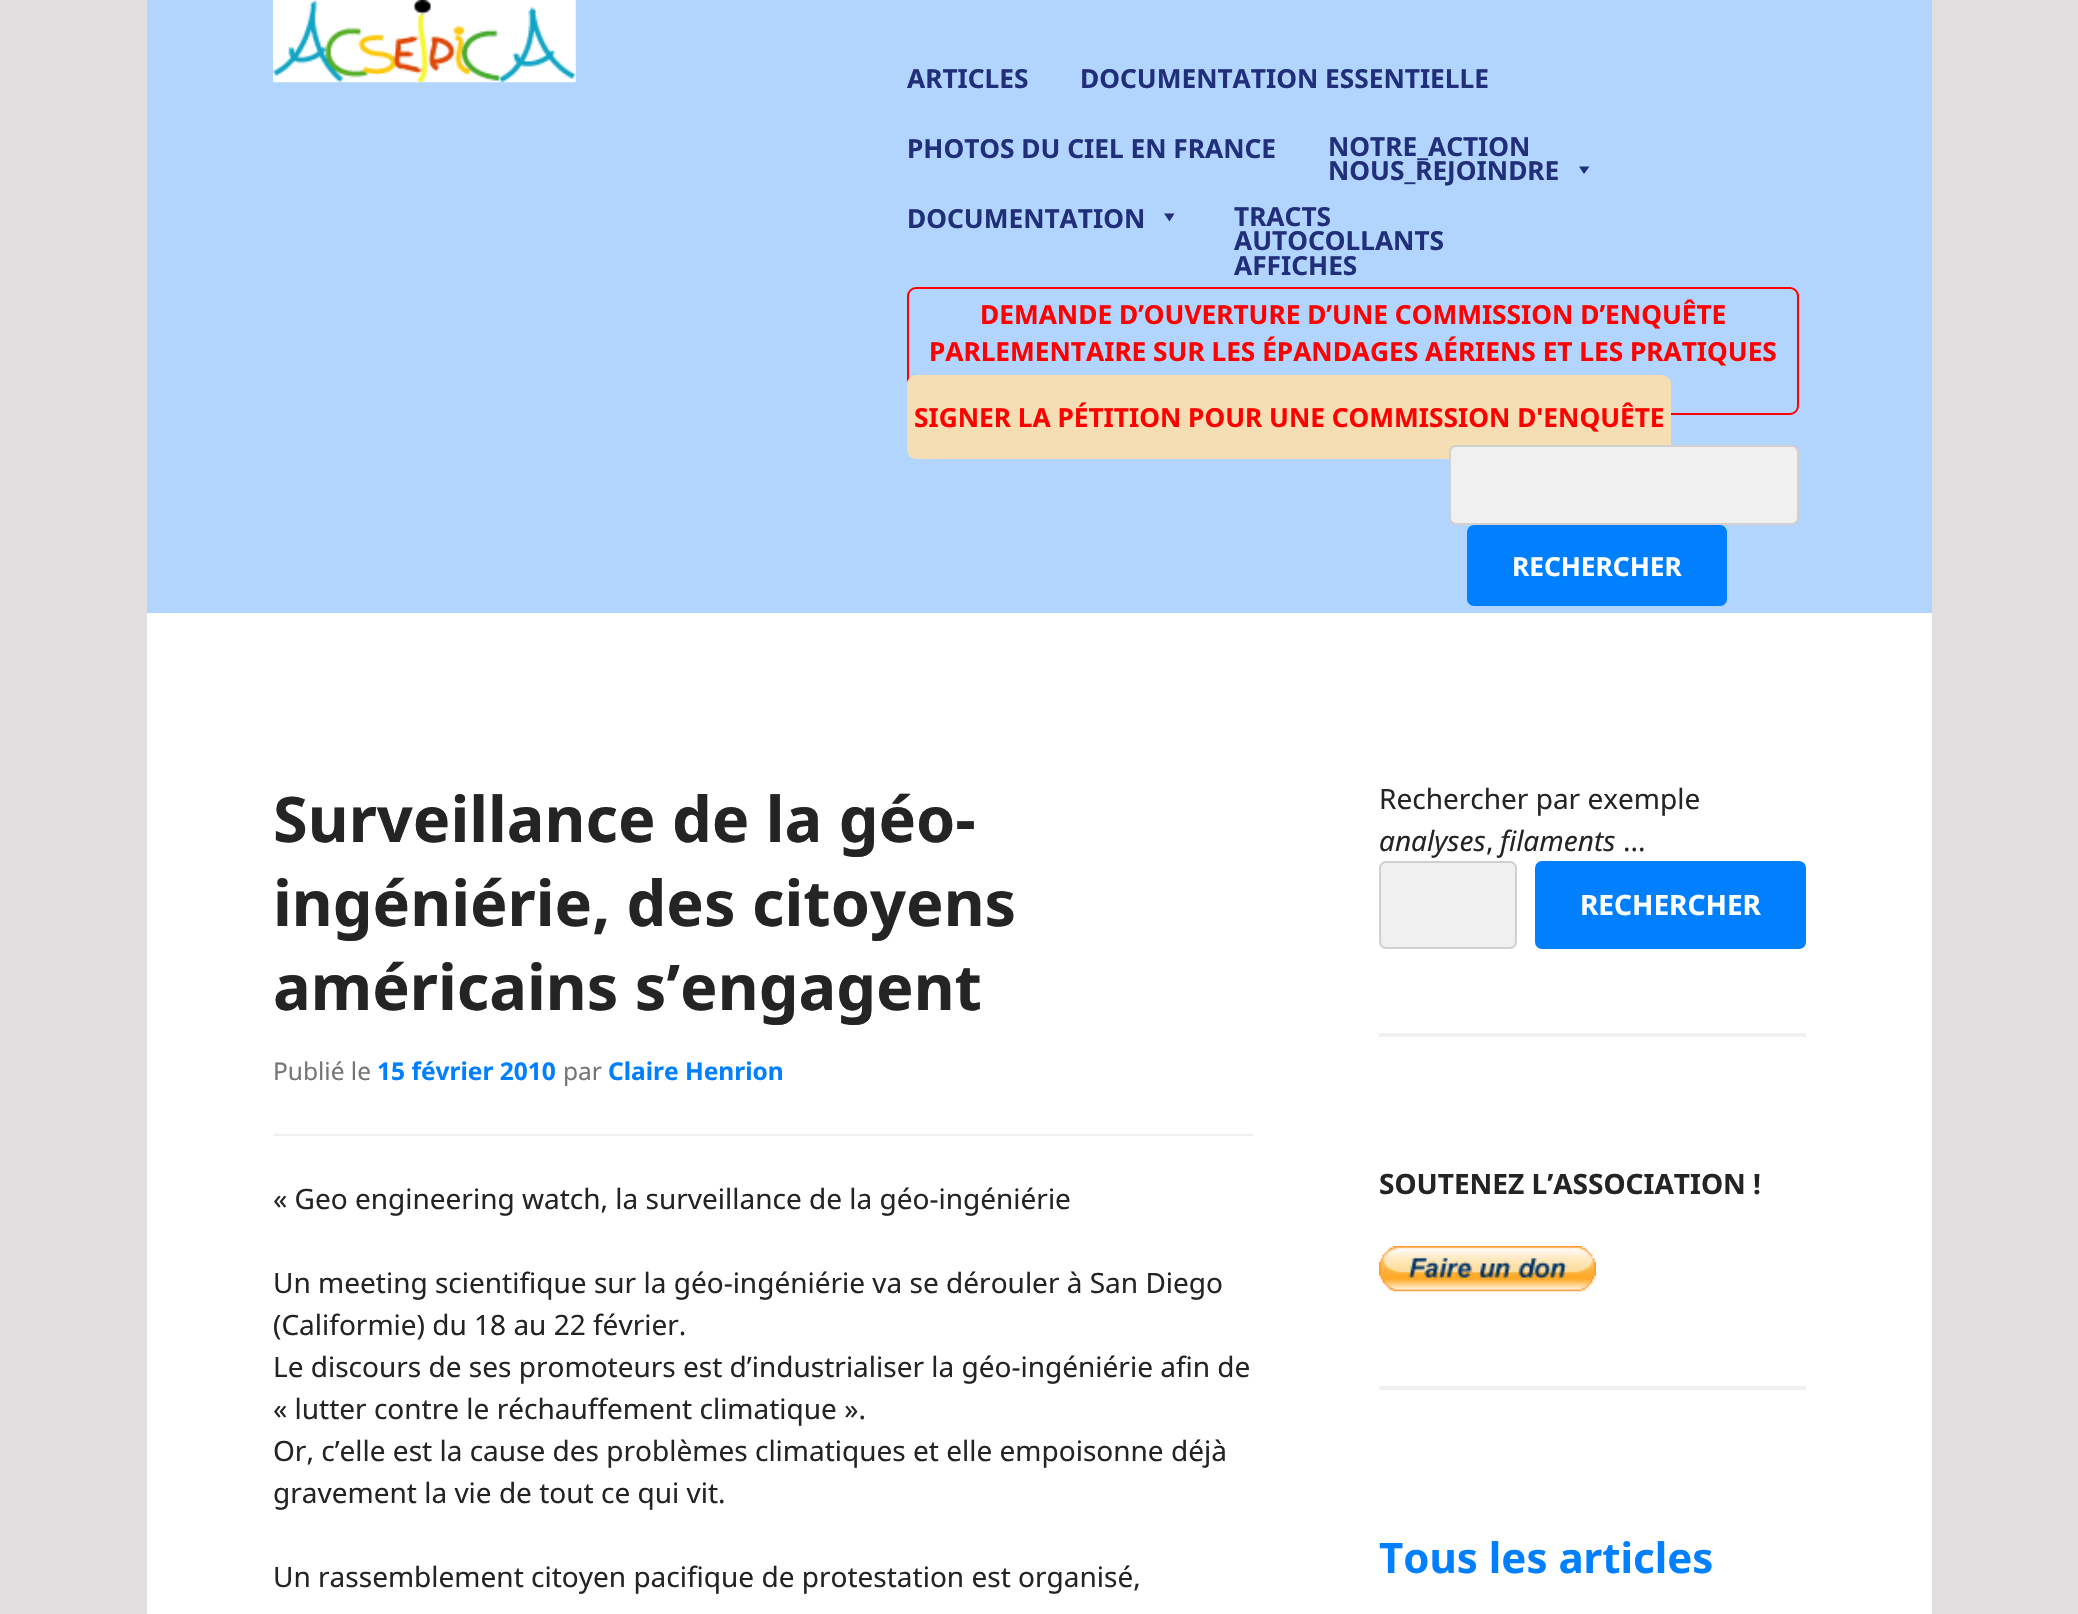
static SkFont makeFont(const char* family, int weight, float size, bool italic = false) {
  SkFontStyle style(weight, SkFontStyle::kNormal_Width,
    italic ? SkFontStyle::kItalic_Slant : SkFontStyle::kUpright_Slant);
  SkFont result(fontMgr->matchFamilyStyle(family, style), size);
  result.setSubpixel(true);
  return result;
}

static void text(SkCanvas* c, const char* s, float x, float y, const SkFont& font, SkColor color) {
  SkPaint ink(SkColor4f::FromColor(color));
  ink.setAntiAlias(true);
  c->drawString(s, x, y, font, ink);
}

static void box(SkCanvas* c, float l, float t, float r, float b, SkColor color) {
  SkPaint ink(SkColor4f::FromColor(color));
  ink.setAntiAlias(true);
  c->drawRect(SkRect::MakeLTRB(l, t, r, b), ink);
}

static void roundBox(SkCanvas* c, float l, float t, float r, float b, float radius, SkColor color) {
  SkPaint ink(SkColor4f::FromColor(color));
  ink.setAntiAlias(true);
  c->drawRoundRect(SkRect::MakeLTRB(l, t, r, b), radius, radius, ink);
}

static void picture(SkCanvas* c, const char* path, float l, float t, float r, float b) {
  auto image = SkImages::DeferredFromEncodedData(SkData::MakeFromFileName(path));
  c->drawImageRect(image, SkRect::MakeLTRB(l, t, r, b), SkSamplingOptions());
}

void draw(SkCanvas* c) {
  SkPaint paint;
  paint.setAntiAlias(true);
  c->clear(0xffe1dfdf);
  box(c, 147, 613, 1932, 1614, 0xffffffff);
  box(c, 147, 0, 1932, 613, 0xffb2d5ff);
  picture(c, "img_01.png", 273, 0, 576, 83);
  SkFont face1 = makeFont("Noto Sans", 700, 26.25f);
  text(c, "ARTICLES", 907, 88, face1, 0xff212f7a);
  text(c, "DOCUMENTATION ESSENTIELLE", 1080, 88, face1, 0xff212f7a);
  text(c, "PHOTOS DU CIEL EN FRANCE", 907, 158, face1, 0xff212f7a);
  text(c, "NOTRE_ACTION", 1328, 156, face1, 0xff212f7a);
  text(c, "NOUS_REJOINDRE", 1328, 180, face1, 0xff212f7a);
  paint.setColor(0xff212f7a);
  c->drawPath(SkPathBuilder().moveTo(1589.5f, 166.5f).lineTo(1584, 174).lineTo(1579, 166.5f).close().detach(), paint);
  text(c, "DOCUMENTATION", 907, 228, face1, 0xff212f7a);
  c->drawPath(SkPathBuilder().moveTo(1174.5f, 213.5f).lineTo(1169.5f, 221.5f).lineTo(1164, 213.5f).close().detach(), paint);
  text(c, "TRACTS", 1234, 226, face1, 0xff212f7a);
  text(c, "AUTOCOLLANTS", 1234, 250, face1, 0xff212f7a);
  text(c, "AFFICHES", 1234, 275, face1, 0xff212f7a);
  paint.setStyle(SkPaint::kStroke_Style);
  paint.setStrokeWidth(2);
  paint.setColor(0xffff0000);
  c->drawRoundRect(SkRect::MakeLTRB(908, 288, 1798, 414), 8, 8, paint);
  text(c, "DEMANDE D’OUVERTURE D’UNE COMMISSION D’ENQUÊTE", 980, 324, face1, 0xffff0000);
  text(c, "PARLEMENTAIRE SUR LES ÉPANDAGES AÉRIENS ET LES PRATIQUES", 929, 361, face1, 0xffff0000);
  roundBox(c, 907, 375, 1671, 459, 9, 0xfff5deb3);
  text(c, "SIGNER LA PÉTITION POUR UNE COMMISSION D'ENQUÊTE", 914, 427, face1, 0xffff0000);
  paint.setStyle(SkPaint::kFill_Style);
  paint.setColor(0xfff1f0f0);
  c->drawRoundRect(SkRect::MakeLTRB(1450, 446, 1798, 524), 6, 6, paint);
  paint.setStyle(SkPaint::kStroke_Style);
  paint.setColor(0xffd2cfcf);
  c->drawRoundRect(SkRect::MakeLTRB(1450, 446, 1798, 524), 6, 6, paint);
  roundBox(c, 1467, 525, 1727, 606, 7, 0xff0080ff);
  text(c, "RECHERCHER", 1512, 576, face1, 0xffffffff);
  SkFont face2 = makeFont("Noto Sans", 700, 63);
  text(c, "Surveillance de la géo-", 273, 842, face2, 0xff242424);
  text(c, "ingéniérie, des citoyens", 273, 926, face2, 0xff242424);
  text(c, "américains s’engagent", 273, 1010, face2, 0xff242424);
  box(c, 273, 1134, 1253, 1136, 0xfff1f0f0);
  SkFont face3 = makeFont("Noto Sans", 400, 24.5f);
  text(c, "Publié le", 273, 1080, face3, 0xff757575);
  SkFont face4 = makeFont("Noto Sans", 700, 24.5f);
  text(c, "15 février 2010", 377, 1080, face4, 0xff0080ff);
  text(c, "par", 563, 1080, face3, 0xff757575);
  text(c, "Claire Henrion", 608, 1080, face4, 0xff0080ff);
  SkFont face5 = makeFont("Noto Sans", 400, 28);
  text(c, "« Geo engineering watch, la surveillance de la géo-ingéniérie", 273, 1209, face5, 0xff242424);
  text(c, "Un meeting scientifique sur la géo-ingéniérie va se dérouler à San Diego", 273, 1293, face5, 0xff242424);
  text(c, "(Califormie) du 18 au 22 février.", 273, 1335, face5, 0xff242424);
  text(c, "Le discours de ses promoteurs est d’industrialiser la géo-ingéniérie afin de", 273, 1377, face5, 0xff242424);
  text(c, "« lutter contre le réchauffement climatique ».", 273, 1419, face5, 0xff242424);
  text(c, "Or, c’elle est la cause des problèmes climatiques et elle empoisonne déjà", 273, 1461, face5, 0xff242424);
  text(c, "gravement la vie de tout ce qui vit.", 273, 1503, face5, 0xff242424);
  text(c, "Un rassemblement citoyen pacifique de protestation est organisé,", 273, 1587, face5, 0xff242424);
  text(c, "Rechercher par exemple", 1379, 809, face5, 0xff242424);
  SkFont face6 = makeFont("Noto Sans", 400, 28, true);
  text(c, "analyses", 1379, 851, face6, 0xff242424);
  text(c, ",", 1486, 851, face5, 0xff242424);
  text(c, "filaments", 1500, 851, face6, 0xff242424);
  text(c, "...", 1623, 851, face5, 0xff242424);
  paint.setStyle(SkPaint::kFill_Style);
  paint.setColor(0xfff1f0f0);
  c->drawRoundRect(SkRect::MakeLTRB(1380, 862, 1516, 948), 6, 6, paint);
  paint.setStyle(SkPaint::kStroke_Style);
  paint.setColor(0xffd2cfcf);
  c->drawRoundRect(SkRect::MakeLTRB(1380, 862, 1516, 948), 6, 6, paint);
  roundBox(c, 1535, 861, 1806, 949, 7, 0xff0080ff);
  SkFont face7 = makeFont("Noto Sans", 700, 28);
  text(c, "RECHERCHER", 1580, 915, face7, 0xffffffff);
  box(c, 1379, 1033, 1806, 1037, 0xfff1f0f0);
  text(c, "SOUTENEZ L’ASSOCIATION !", 1379, 1194, face7, 0xff242424);
  picture(c, "img_02.png", 1379, 1246, 1596, 1292);
  box(c, 1379, 1386, 1806, 1390, 0xfff1f0f0);
  SkFont face8 = makeFont("Noto Sans", 700, 42);
  text(c, "Tous les articles", 1379, 1573, face8, 0xff0080ff);
}
